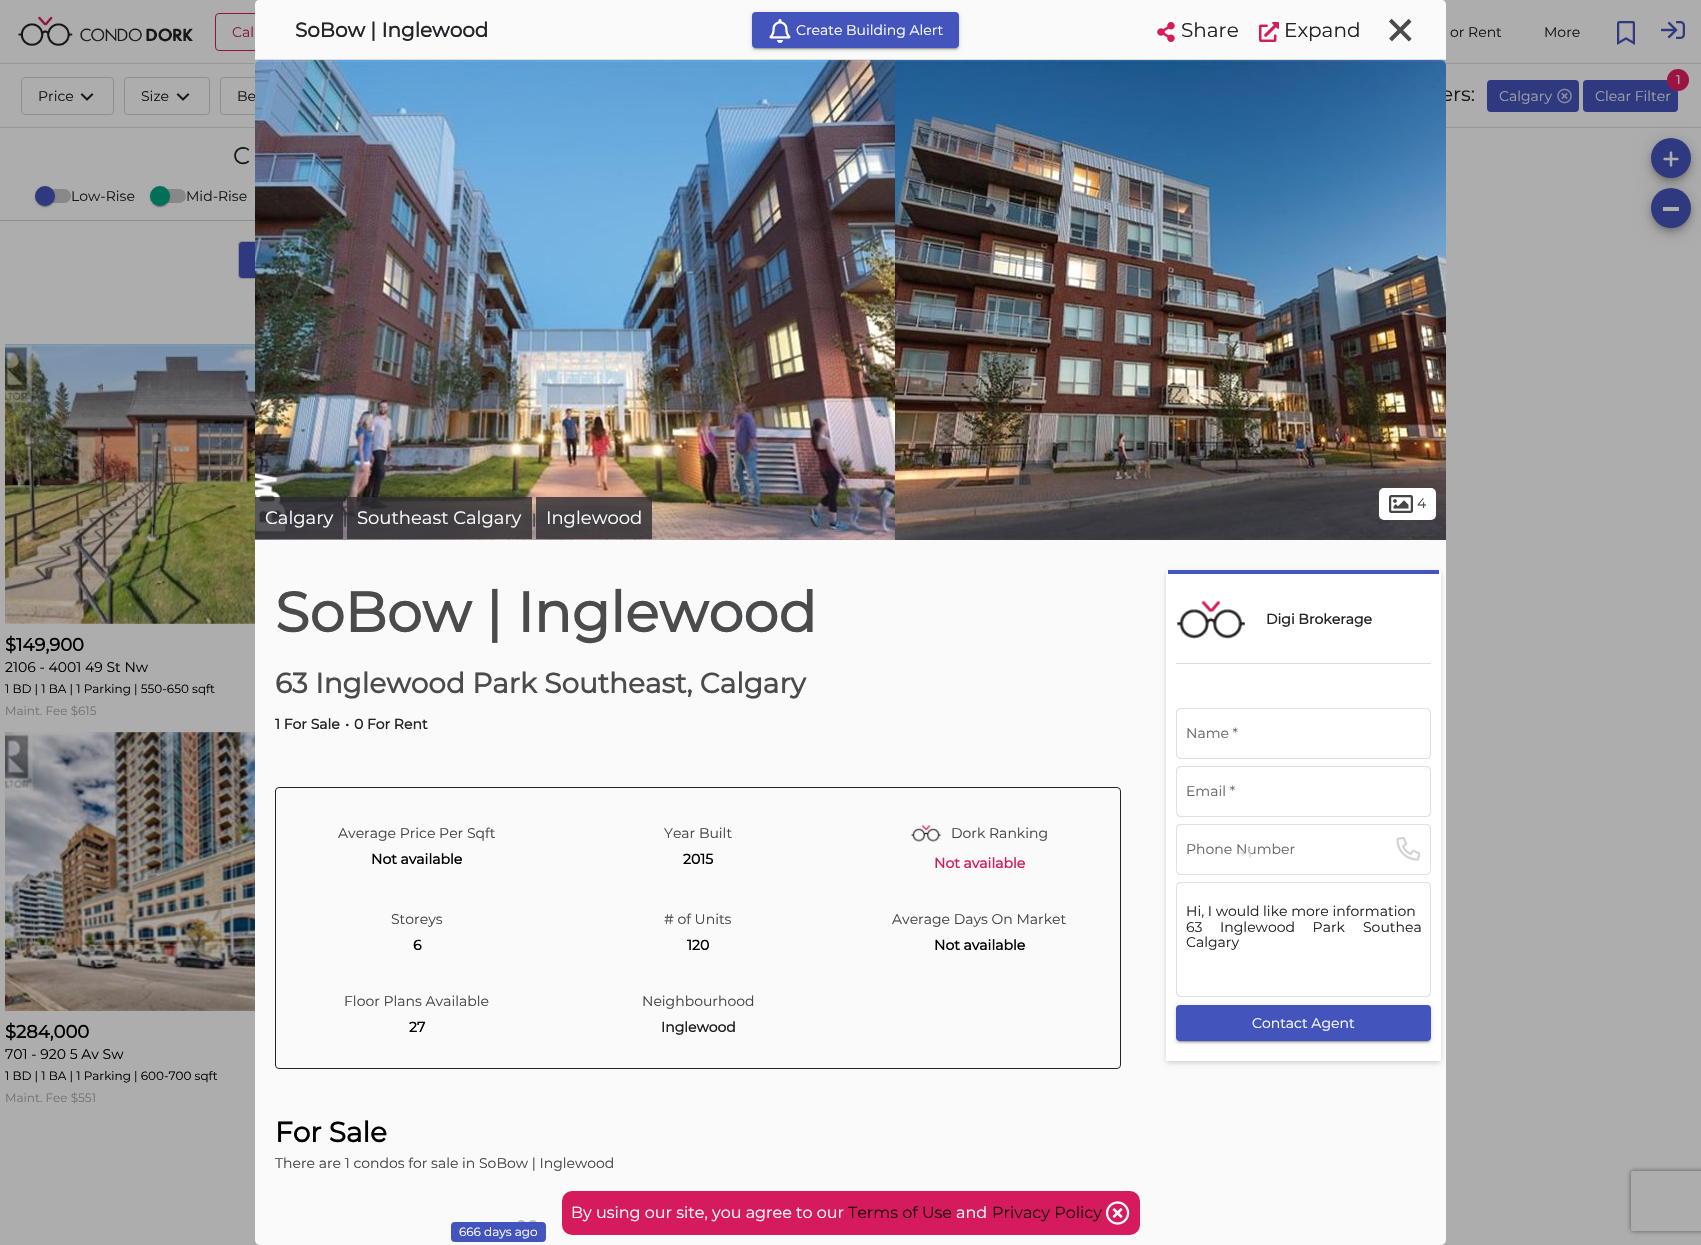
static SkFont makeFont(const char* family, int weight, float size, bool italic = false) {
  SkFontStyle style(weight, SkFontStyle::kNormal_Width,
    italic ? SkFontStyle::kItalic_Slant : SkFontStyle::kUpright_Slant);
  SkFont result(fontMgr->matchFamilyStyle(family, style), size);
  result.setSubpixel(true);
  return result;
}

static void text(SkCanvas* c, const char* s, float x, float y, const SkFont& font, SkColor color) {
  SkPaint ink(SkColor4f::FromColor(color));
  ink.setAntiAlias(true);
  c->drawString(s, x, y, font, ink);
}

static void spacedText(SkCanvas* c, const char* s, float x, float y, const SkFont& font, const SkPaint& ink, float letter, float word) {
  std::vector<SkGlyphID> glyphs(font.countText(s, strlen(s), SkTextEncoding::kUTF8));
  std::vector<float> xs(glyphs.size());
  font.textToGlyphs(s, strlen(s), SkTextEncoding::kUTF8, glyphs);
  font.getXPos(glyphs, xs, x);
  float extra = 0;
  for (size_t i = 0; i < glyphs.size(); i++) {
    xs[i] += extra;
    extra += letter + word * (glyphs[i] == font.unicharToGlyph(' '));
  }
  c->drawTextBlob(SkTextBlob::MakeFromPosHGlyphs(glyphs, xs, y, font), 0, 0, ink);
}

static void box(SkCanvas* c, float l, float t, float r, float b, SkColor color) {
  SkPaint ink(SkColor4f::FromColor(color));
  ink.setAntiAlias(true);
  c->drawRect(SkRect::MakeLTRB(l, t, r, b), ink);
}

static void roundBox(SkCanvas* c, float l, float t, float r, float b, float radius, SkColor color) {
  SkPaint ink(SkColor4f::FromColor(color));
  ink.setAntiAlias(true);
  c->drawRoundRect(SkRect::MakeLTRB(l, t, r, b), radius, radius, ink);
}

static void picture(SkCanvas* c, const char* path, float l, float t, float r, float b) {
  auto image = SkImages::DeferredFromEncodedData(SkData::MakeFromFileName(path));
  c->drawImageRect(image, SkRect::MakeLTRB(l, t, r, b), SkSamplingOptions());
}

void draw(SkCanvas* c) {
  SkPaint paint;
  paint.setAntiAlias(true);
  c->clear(0xffadadad);
  paint.setStyle(SkPaint::kStroke_Style);
  paint.setStrokeWidth(1);
  paint.setColor(0xff91123f);
  c->drawRoundRect(SkRect::MakeLTRB(215.5f, 13.5f, 328.5f, 50.5f), 3.5f, 3.5f, paint);
  paint.setStyle(SkPaint::kFill_Style);
  paint.setColor(0xfffafafa);
  c->drawPath(SkPathBuilder().moveTo(259, 0).lineTo(1442, 0).cubicTo(1444, 0, 1446, 2, 1446, 4).lineTo(1446, 60).lineTo(255, 60).lineTo(255, 4).cubicTo(255, 2, 257, 0, 259, 0).close().detach(), paint);
  box(c, 255, 59, 1446, 60, 0xffdddddd);
  SkFont face1 = makeFont("Montserrat", 700, 20);
  text(c, "SoBow | Inglewood", 295, 37, face1, 0xff212529);
  paint.setColor(0x1f000000);
  paint.setMaskFilter(SkMaskFilter::MakeBlur(kNormal_SkBlurStyle, 2.5f));
  c->drawRoundRect(SkRect::MakeLTRB(752, 13, 959, 49), 4, 4, paint);
  paint.setMaskFilter(nullptr);
  paint.setColor(0x24000000);
  paint.setMaskFilter(SkMaskFilter::MakeBlur(kNormal_SkBlurStyle, 1));
  c->drawRoundRect(SkRect::MakeLTRB(752, 14, 959, 50), 4, 4, paint);
  paint.setMaskFilter(nullptr);
  paint.setColor(0x33000000);
  paint.setMaskFilter(SkMaskFilter::MakeBlur(kNormal_SkBlurStyle, 0.5f));
  c->drawRoundRect(SkRect::MakeLTRB(754, 17, 957, 49), 2, 2, paint);
  paint.setMaskFilter(nullptr);
  roundBox(c, 752, 12, 959, 48, 4, 0xff4354bc);
  picture(c, "img_01.png", 769, 19, 791, 43);
  SkFont face2 = makeFont("Montserrat", 100, 14);
  text(c, "Create Building Alert", 796, 35, face2, 0xffffffff);
  picture(c, "img_02.png", 1157, 22, 1175, 42);
  SkFont face3 = makeFont("Montserrat", 100, 20);
  text(c, "Share", 1181, 37, face3, 0xff212529);
  picture(c, "img_03.png", 1259, 22, 1279, 42);
  text(c, "Expand", 1284, 37, face3, 0xff212121);
  SkFont face4 = makeFont("Montserrat", 100, 65);
  c->save();
  c->rotate(45, 1371, 33);
  text(c, "+", 1371, 33, face4, 0xff4a4b4d);
  c->restore();
  box(c, 0, 127, 1701, 128, 0xff989898);
  paint.setStyle(SkPaint::kStroke_Style);
  paint.setColor(0xff8f8f8f);
  c->drawRoundRect(SkRect::MakeLTRB(220.5f, 77.5f, 312.5f, 114.5f), 3.5f, 3.5f, paint);
  text(c, "Be", 237, 101, face2, 0xff161616);
  text(c, "ers:", 1441, 101, face3, 0xff161616);
  paint.setStyle(SkPaint::kFill_Style);
  paint.setColor(0xff2e3980);
  c->drawRoundRect(SkRect::MakeLTRB(238.5f, 241.5f, 388.5f, 278.5f), 3.5f, 3.5f, paint);
  paint.setStyle(SkPaint::kStroke_Style);
  paint.setColor(0xff8f8f8f);
  c->drawRoundRect(SkRect::MakeLTRB(238.5f, 241.5f, 388.5f, 278.5f), 3.5f, 3.5f, paint);
  box(c, 0, 63, 1701, 64, 0xff989898);
  roundBox(c, 255, 60, 1446, 1245, 5, 0xfffafafa);
  picture(c, "img_04.png", 255, 60, 895, 540);
  picture(c, "img_05.png", 895, 60, 1446, 540);
  roundBox(c, 1379, 488, 1436, 520, 5, 0xffffffff);
  picture(c, "img_06.png", 1389, 495, 1413, 513);
  text(c, "4", 1417, 508, face2, 0xff444444);
  box(c, 255, 497, 343, 539, 0xcc2d2c31);
  SkFont face5 = makeFont("Montserrat", 100, 18);
  text(c, "Calgary", 265, 524, face5, 0xffffffff);
  text(c, "|", 343, 524, face2, 0xff212529);
  box(c, 347, 497, 532, 539, 0xcc2d2c31);
  text(c, "Southeast Calgary", 357, 524, face5, 0xffffffff);
  text(c, "|", 532, 524, face2, 0xff212529);
  box(c, 536, 497, 652, 539, 0xcc2d2c31);
  text(c, "Inglewood", 546, 524, face5, 0xffffffff);
  SkFont face6 = makeFont("Montserrat", 700, 56);
  text(c, "SoBow | Inglewood", 275, 632, face6, 0xff4a4b4d);
  SkFont face7 = makeFont("Montserrat", 700, 28);
  text(c, "63 Inglewood Park Southeast, Calgary", 275, 693, face7, 0xff4a4b4d);
  SkFont face8 = makeFont("Montserrat", 700, 14);
  text(c, "1 For Sale", 275, 729, face8, 0xff212529);
  text(c, "•", 345, 729, face8, 0xff212529);
  text(c, "0 For Rent", 354, 729, face8, 0xff212529);
  paint.setColor(0xff212529);
  c->drawRoundRect(SkRect::MakeLTRB(275.5f, 787.5f, 1120.5f, 1068.5f), 3.5f, 3.5f, paint);
  text(c, "Average Price Per Sqft", 338, 838, face2, 0xff444444);
  text(c, "Not available", 371, 864, face8, 0xff000000);
  text(c, "Year Built", 664, 838, face2, 0xff444444);
  text(c, "2015", 683, 864, face8, 0xff000000);
  picture(c, "img_07.png", 911, 825, 941, 842);
  text(c, "Dork Ranking", 951, 838, face2, 0xff444444);
  text(c, "Not available", 934, 868, face8, 0xffd51b5d);
  text(c, "Storeys", 391, 924, face2, 0xff444444);
  text(c, "6", 413, 950, face8, 0xff000000);
  text(c, "# of Units", 664, 924, face2, 0xff444444);
  text(c, "120", 687, 950, face8, 0xff000000);
  text(c, "Average Days On Market", 892, 924, face2, 0xff444444);
  text(c, "Not available", 934, 950, face8, 0xff000000);
  text(c, "Floor Plans Available", 344, 1006, face2, 0xff444444);
  text(c, "27", 409, 1032, face8, 0xff000000);
  text(c, "Neighbourhood", 642, 1006, face2, 0xff444444);
  text(c, "Inglewood", 661, 1032, face8, 0xff212121);
  text(c, "For Sale", 275, 1142, face7, 0xff000000);
  text(c, "There are 1 condos for sale in SoBow | Inglewood", 275, 1168, face2, 0xff444444);
  picture(c, "img_08.png", 514, 1217, 540, 1222);
  roundBox(c, 451, 1222, 546, 1242, 4, 0xff4354bc);
  SkFont face9 = makeFont("Montserrat", 100, 12);
  text(c, "666 days ago", 459, 1236, face9, 0xffffffff);
  paint.setStyle(SkPaint::kFill_Style);
  paint.setColor(0xa6bababa);
  paint.setMaskFilter(SkMaskFilter::MakeBlur(kNormal_SkBlurStyle, 2.5f));
  c->drawRoundRect(SkRect::MakeLTRB(1166, 572, 1441, 1063), 4, 4, paint);
  paint.setMaskFilter(nullptr);
  roundBox(c, 1166, 570, 1441, 1061, 4, 0xffffffff);
  box(c, 1168, 570, 1439, 574, 0xff4354bc);
  box(c, 1176, 663, 1431, 664, 0xffdedede);
  picture(c, "img_09.png", 1177, 600, 1245, 639);
  text(c, "Digi Brokerage", 1266, 624, face8, 0xff212529);
  box(c, 1166, 1058, 1441, 1061, 0xffffffff);
  paint.setColor(0xffe0e0e0);
  c->drawPath(SkPathBuilder(SkPathFillType::kEvenOdd).moveTo(1181, 708).lineTo(1181, 759).cubicTo(1178, 759, 1176, 757, 1176, 754).lineTo(1176, 713).cubicTo(1176, 710, 1178, 708, 1181, 708).close().moveTo(1181, 709).lineTo(1181, 758).cubicTo(1179, 758, 1177, 756, 1177, 754).lineTo(1177, 713).cubicTo(1177, 711, 1179, 709, 1181, 709).close().detach(), paint);
  box(c, 1181, 708, 1230, 709, 0xffe0e0e0);
  box(c, 1181, 758, 1230, 759, 0xffe0e0e0);
  c->drawPath(SkPathBuilder(SkPathFillType::kEvenOdd).moveTo(1230, 708).lineTo(1426, 708).cubicTo(1429, 708, 1431, 710, 1431, 713).lineTo(1431, 754).cubicTo(1431, 757, 1429, 759, 1426, 759).lineTo(1230, 759).close().moveTo(1230, 709).lineTo(1426, 709).cubicTo(1428, 709, 1430, 711, 1430, 713).lineTo(1430, 754).cubicTo(1430, 756, 1428, 758, 1426, 758).lineTo(1230, 758).close().detach(), paint);
  text(c, "Name *", 1186, 738, face2, 0xff666666);
  c->drawPath(SkPathBuilder(SkPathFillType::kEvenOdd).moveTo(1181, 766).lineTo(1181, 817).cubicTo(1178, 817, 1176, 815, 1176, 812).lineTo(1176, 771).cubicTo(1176, 768, 1178, 766, 1181, 766).close().moveTo(1181, 767).lineTo(1181, 816).cubicTo(1179, 816, 1177, 814, 1177, 812).lineTo(1177, 771).cubicTo(1177, 769, 1179, 767, 1181, 767).close().detach(), paint);
  box(c, 1181, 766, 1228, 767, 0xffe0e0e0);
  box(c, 1181, 816, 1228, 817, 0xffe0e0e0);
  c->drawPath(SkPathBuilder(SkPathFillType::kEvenOdd).moveTo(1228, 766).lineTo(1426, 766).cubicTo(1429, 766, 1431, 768, 1431, 771).lineTo(1431, 812).cubicTo(1431, 815, 1429, 817, 1426, 817).lineTo(1228, 817).close().moveTo(1228, 767).lineTo(1426, 767).cubicTo(1428, 767, 1430, 769, 1430, 771).lineTo(1430, 812).cubicTo(1430, 814, 1428, 816, 1426, 816).lineTo(1228, 816).close().detach(), paint);
  text(c, "Email *", 1186, 796, face2, 0xff666666);
  c->drawPath(SkPathBuilder(SkPathFillType::kEvenOdd).moveTo(1181, 824).lineTo(1181, 875).cubicTo(1178, 875, 1176, 873, 1176, 870).lineTo(1176, 829).cubicTo(1176, 826, 1178, 824, 1181, 824).close().moveTo(1181, 825).lineTo(1181, 874).cubicTo(1179, 874, 1177, 872, 1177, 870).lineTo(1177, 829).cubicTo(1177, 827, 1179, 825, 1181, 825).close().detach(), paint);
  box(c, 1181, 824, 1273, 825, 0xffe0e0e0);
  box(c, 1181, 874, 1273, 875, 0xffe0e0e0);
  c->drawPath(SkPathBuilder(SkPathFillType::kEvenOdd).moveTo(1273, 824).lineTo(1426, 824).cubicTo(1429, 824, 1431, 826, 1431, 829).lineTo(1431, 870).cubicTo(1431, 873, 1429, 875, 1426, 875).lineTo(1273, 875).close().moveTo(1273, 825).lineTo(1426, 825).cubicTo(1428, 825, 1430, 827, 1430, 829).lineTo(1430, 870).cubicTo(1430, 872, 1428, 874, 1426, 874).lineTo(1273, 874).close().detach(), paint);
  text(c, "Phone Number", 1186, 854, face2, 0xff666666);
  text(c, "+1", 1239, 858, face2, 0xffdbdbdb);
  picture(c, "img_10.png", 1396, 837, 1421, 861);
  c->drawPath(SkPathBuilder(SkPathFillType::kEvenOdd).moveTo(1181, 882).lineTo(1181, 997).cubicTo(1178, 997, 1176, 995, 1176, 992).lineTo(1176, 887).cubicTo(1176, 884, 1178, 882, 1181, 882).close().moveTo(1181, 883).lineTo(1181, 996).cubicTo(1179, 996, 1177, 994, 1177, 992).lineTo(1177, 887).cubicTo(1177, 885, 1179, 883, 1181, 883).close().detach(), paint);
  c->drawPath(SkPathBuilder(SkPathFillType::kEvenOdd).moveTo(1181, 882).lineTo(1426, 882).cubicTo(1429, 882, 1431, 884, 1431, 887).lineTo(1431, 992).cubicTo(1431, 995, 1429, 997, 1426, 997).lineTo(1181, 997).close().moveTo(1181, 883).lineTo(1426, 883).cubicTo(1428, 883, 1430, 885, 1430, 887).lineTo(1430, 992).cubicTo(1430, 994, 1428, 996, 1426, 996).lineTo(1181, 996).close().detach(), paint);
  text(c, "Hi, I would like more information", 1186, 916, face2, 0xff212529);
  paint.setColor(0xff212529);
  spacedText(c, "63 Inglewood Park", 1186, 932, face2, paint, 0, 14);
  text(c, "Southea", 1363, 932, face2, 0xff212529);
  text(c, "Calgary", 1186, 947, face2, 0xff212529);
  paint.setColor(0x1f000000);
  paint.setMaskFilter(SkMaskFilter::MakeBlur(kNormal_SkBlurStyle, 2.5f));
  c->drawRoundRect(SkRect::MakeLTRB(1176, 1006, 1431, 1042), 4, 4, paint);
  paint.setMaskFilter(nullptr);
  paint.setColor(0x24000000);
  paint.setMaskFilter(SkMaskFilter::MakeBlur(kNormal_SkBlurStyle, 1));
  c->drawRoundRect(SkRect::MakeLTRB(1176, 1007, 1431, 1043), 4, 4, paint);
  paint.setMaskFilter(nullptr);
  paint.setColor(0x33000000);
  paint.setMaskFilter(SkMaskFilter::MakeBlur(kNormal_SkBlurStyle, 0.5f));
  c->drawRoundRect(SkRect::MakeLTRB(1178, 1010, 1429, 1042), 2, 2, paint);
  paint.setMaskFilter(nullptr);
  roundBox(c, 1176, 1005, 1431, 1041, 4, 0xff4354bc);
  text(c, "Contact Agent", 1252, 1028, face2, 0xffffffff);
  paint.setStyle(SkPaint::kStroke_Style);
  paint.setColor(0xff8f8f8f);
  c->drawRoundRect(SkRect::MakeLTRB(21.5f, 77.5f, 113.5f, 114.5f), 3.5f, 3.5f, paint);
  text(c, "Price", 38, 101, face2, 0xff161616);
  picture(c, "img_11.png", 80, 93, 94, 101);
  c->drawRoundRect(SkRect::MakeLTRB(124.5f, 77.5f, 209.5f, 114.5f), 3.5f, 3.5f, paint);
  text(c, "Size", 141, 101, face2, 0xff161616);
  picture(c, "img_11.png", 176, 93, 190, 101);
  roundBox(c, 1487, 80, 1579, 112, 4, 0xff2e3980);
  text(c, "Calgary", 1499, 101, face2, 0xffa2a2a2);
  picture(c, "img_12.png", 1557, 88, 1572, 104);
  roundBox(c, 1583, 80, 1678, 112, 4, 0xff2e3980);
  text(c, "Clear Filter", 1595, 101, face2, 0xffa2a2a2);
  paint.setStyle(SkPaint::kFill_Style);
  paint.setColor(0xff9c1442);
  c->drawCircle(1678, 80, 11, paint);
  SkFont face10 = makeFont("Montserrat", 700, 12);
  text(c, "1", 1676, 84, face10, 0xffadadad);
  SkFont face11 = makeFont("Montserrat", 100, 24);
  text(c, "C", 233, 164, face11, 0xff16191c);
  box(c, 0, 220, 255, 221, 0xff8f8f8f);
  roundBox(c, 35, 189, 71, 203, 7, 0xff898888);
  paint.setColor(0x1f000000);
  paint.setMaskFilter(SkMaskFilter::MakeBlur(kNormal_SkBlurStyle, 1.5f));
  c->drawRoundRect(SkRect::MakeLTRB(35, 187, 55, 207), 10, 10, paint);
  paint.setMaskFilter(nullptr);
  paint.setColor(0x24000000);
  paint.setMaskFilter(SkMaskFilter::MakeBlur(kNormal_SkBlurStyle, 0.5f));
  c->drawRoundRect(SkRect::MakeLTRB(35, 187, 55, 207), 10, 10, paint);
  paint.setMaskFilter(nullptr);
  paint.setColor(0x33000000);
  paint.setMaskFilter(SkMaskFilter::MakeBlur(kNormal_SkBlurStyle, 0.5f));
  c->drawRoundRect(SkRect::MakeLTRB(36, 189, 54, 207), 9, 9, paint);
  paint.setMaskFilter(nullptr);
  paint.setColor(0xff2e3980);
  c->drawCircle(45, 196, 10, paint);
  text(c, "Low-Rise", 71, 201, face2, 0xff16191c);
  roundBox(c, 150, 189, 186, 203, 7, 0xff898888);
  paint.setColor(0x1f000000);
  paint.setMaskFilter(SkMaskFilter::MakeBlur(kNormal_SkBlurStyle, 1.5f));
  c->drawRoundRect(SkRect::MakeLTRB(150, 187, 170, 207), 10, 10, paint);
  paint.setMaskFilter(nullptr);
  paint.setColor(0x24000000);
  paint.setMaskFilter(SkMaskFilter::MakeBlur(kNormal_SkBlurStyle, 0.5f));
  c->drawRoundRect(SkRect::MakeLTRB(150, 187, 170, 207), 10, 10, paint);
  paint.setMaskFilter(nullptr);
  paint.setColor(0x33000000);
  paint.setMaskFilter(SkMaskFilter::MakeBlur(kNormal_SkBlurStyle, 0.5f));
  c->drawRoundRect(SkRect::MakeLTRB(151, 189, 169, 207), 9, 9, paint);
  paint.setMaskFilter(nullptr);
  paint.setColor(0xff007058);
  c->drawCircle(160, 196, 10, paint);
  text(c, "Mid-Rise", 186, 201, face2, 0xff16191c);
  picture(c, "img_13.png", 5, 344, 255, 624);
  SkFont face12 = makeFont("Montserrat", 700, 18);
  text(c, "$149,900", 5, 651, face12, 0xff000000);
  text(c, "2106 - 4001 49 St Nw", 5, 672, face2, 0xff000000);
  text(c, "1 BD | 1 BA | 1 Parking | 550-650 sqft", 5, 693, face9, 0xff000000);
  text(c, "Maint. Fee $615", 5, 715, face9, 0xff737373);
  picture(c, "img_14.png", 5, 732, 255, 1011);
  text(c, "$284,000", 5, 1038, face12, 0xff000000);
  text(c, "701 - 920 5 Av Sw", 5, 1059, face2, 0xff000000);
  text(c, "1 BD | 1 BA | 1 Parking | 600-700 sqft", 5, 1080, face9, 0xff000000);
  text(c, "Maint. Fee $551", 5, 1102, face9, 0xff737373);
  paint.setColor(0x1f000000);
  paint.setMaskFilter(SkMaskFilter::MakeBlur(kNormal_SkBlurStyle, 9));
  c->drawRoundRect(SkRect::MakeLTRB(1651, 139, 1691, 179), 20, 20, paint);
  paint.setMaskFilter(nullptr);
  paint.setColor(0x24000000);
  paint.setMaskFilter(SkMaskFilter::MakeBlur(kNormal_SkBlurStyle, 5));
  c->drawRoundRect(SkRect::MakeLTRB(1651, 144, 1691, 184), 20, 20, paint);
  paint.setMaskFilter(nullptr);
  paint.setColor(0x33000000);
  paint.setMaskFilter(SkMaskFilter::MakeBlur(kNormal_SkBlurStyle, 2.5f));
  c->drawRoundRect(SkRect::MakeLTRB(1652, 142, 1690, 180), 19, 19, paint);
  paint.setMaskFilter(nullptr);
  paint.setColor(0xff2e3980);
  c->drawCircle(1671, 158, 20, paint);
  picture(c, "img_15.png", 1663, 151, 1679, 167);
  paint.setColor(0x1f000000);
  paint.setMaskFilter(SkMaskFilter::MakeBlur(kNormal_SkBlurStyle, 9));
  c->drawRoundRect(SkRect::MakeLTRB(1651, 189, 1691, 229), 20, 20, paint);
  paint.setMaskFilter(nullptr);
  paint.setColor(0x24000000);
  paint.setMaskFilter(SkMaskFilter::MakeBlur(kNormal_SkBlurStyle, 5));
  c->drawRoundRect(SkRect::MakeLTRB(1651, 194, 1691, 234), 20, 20, paint);
  paint.setMaskFilter(nullptr);
  paint.setColor(0x33000000);
  paint.setMaskFilter(SkMaskFilter::MakeBlur(kNormal_SkBlurStyle, 2.5f));
  c->drawRoundRect(SkRect::MakeLTRB(1652, 192, 1690, 230), 19, 19, paint);
  paint.setMaskFilter(nullptr);
  paint.setColor(0xff2e3980);
  c->drawCircle(1671, 208, 20, paint);
  box(c, 1663, 207, 1679, 211, 0xffadadad);
  picture(c, "img_16.png", 18, 16, 193, 46);
  text(c, "Cal", 232, 37, face2, 0xff91123f);
  text(c, "or Rent", 1450, 37, face2, 0xff161616);
  text(c, "More", 1544, 37, face2, 0xff161616);
  picture(c, "img_17.png", 1617, 21, 1635, 45);
  picture(c, "img_18.png", 1661, 21, 1685, 39);
  roundBox(c, 562, 1191, 1140, 1235, 10, 0xffd51b5d);
  SkFont face13 = makeFont("Montserrat", 100, 16);
  text(c, "By using our site, you agree to our", 571, 1218, face13, 0xffffffff);
  text(c, "Terms of Use", 848, 1218, face13, 0xff1c040c);
  text(c, "and", 956, 1218, face13, 0xffffffff);
  text(c, "Privacy Policy", 992, 1218, face13, 0xff1c040c);
  picture(c, "img_19.png", 1106, 1201, 1130, 1225);
  c->save();
  c->clipPath(SkPathBuilder(SkPathFillType::kEvenOdd).moveTo(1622, 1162).lineTo(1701, 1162).lineTo(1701, 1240).lineTo(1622, 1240).close().moveTo(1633, 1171).lineTo(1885, 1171).cubicTo(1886, 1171, 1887, 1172, 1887, 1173).lineTo(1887, 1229).cubicTo(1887, 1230, 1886, 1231, 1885, 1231).lineTo(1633, 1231).cubicTo(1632, 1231, 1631, 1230, 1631, 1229).lineTo(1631, 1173).cubicTo(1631, 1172, 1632, 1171, 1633, 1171).close().detach(), true);
  paint.setColor(0xff575757);
  paint.setMaskFilter(SkMaskFilter::MakeBlur(kNormal_SkBlurStyle, 2.5f));
  c->drawRoundRect(SkRect::MakeLTRB(1631, 1171, 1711, 1231), 2, 2, paint);
  paint.setMaskFilter(nullptr);
  c->restore();
}
